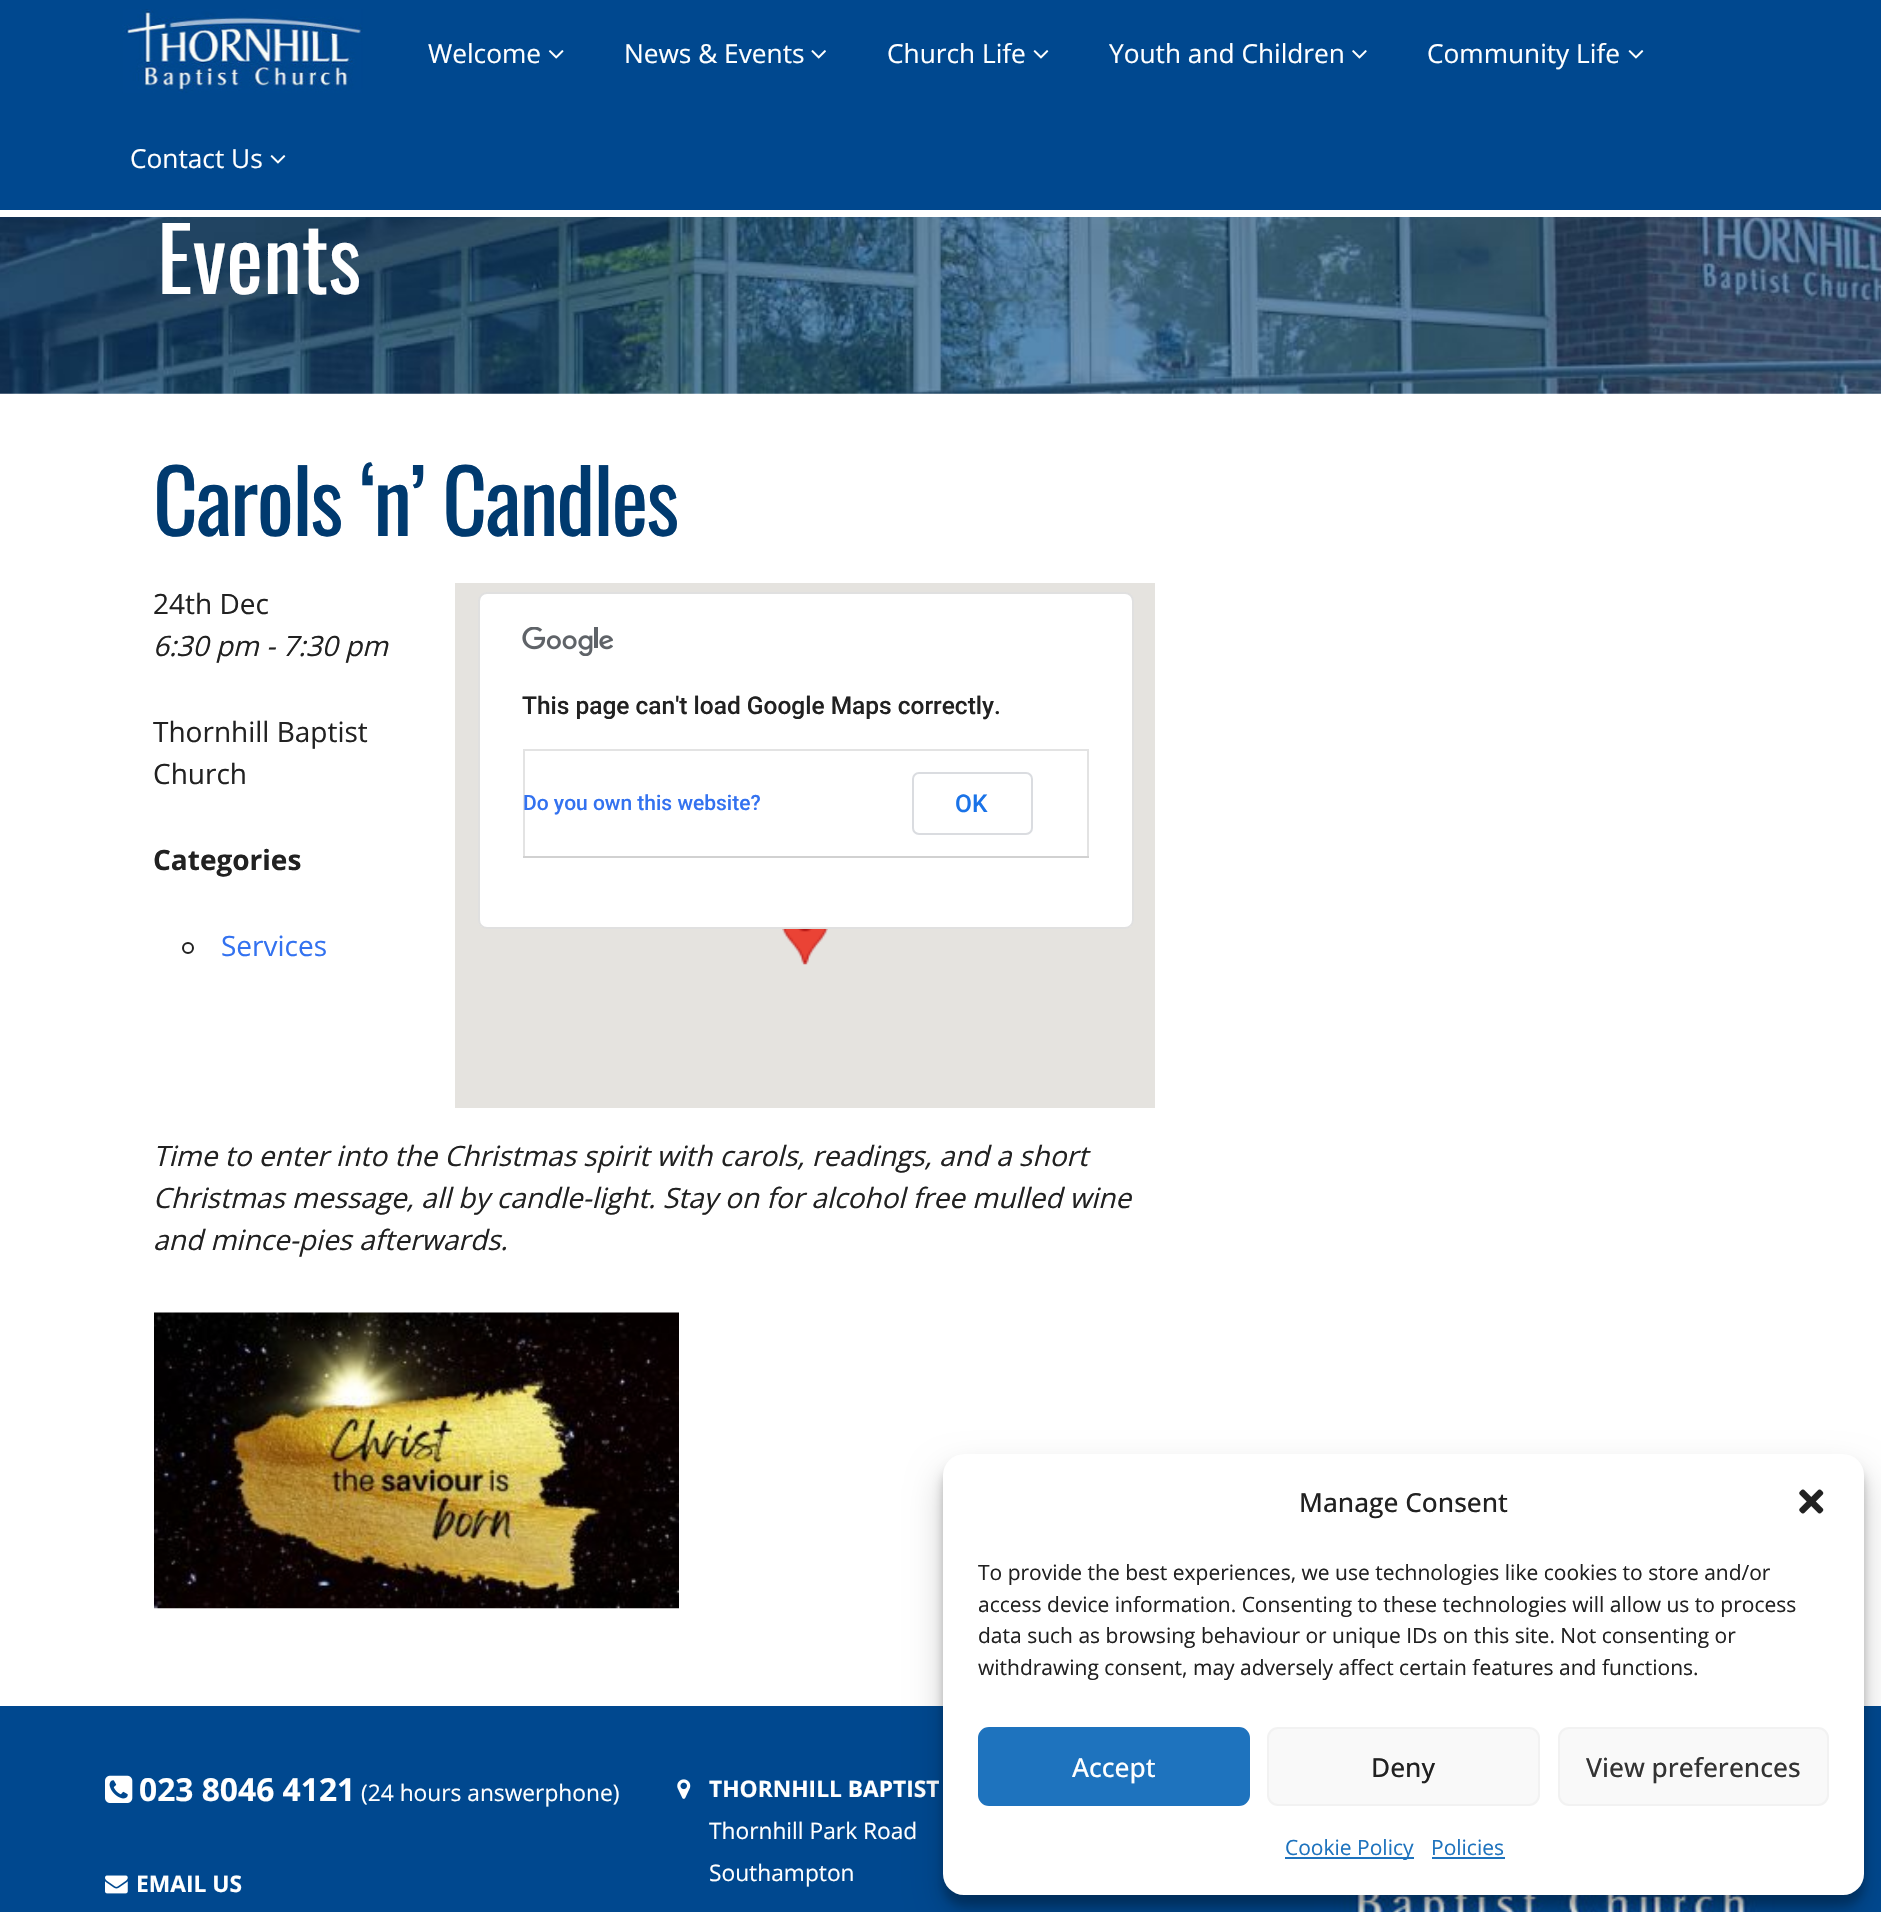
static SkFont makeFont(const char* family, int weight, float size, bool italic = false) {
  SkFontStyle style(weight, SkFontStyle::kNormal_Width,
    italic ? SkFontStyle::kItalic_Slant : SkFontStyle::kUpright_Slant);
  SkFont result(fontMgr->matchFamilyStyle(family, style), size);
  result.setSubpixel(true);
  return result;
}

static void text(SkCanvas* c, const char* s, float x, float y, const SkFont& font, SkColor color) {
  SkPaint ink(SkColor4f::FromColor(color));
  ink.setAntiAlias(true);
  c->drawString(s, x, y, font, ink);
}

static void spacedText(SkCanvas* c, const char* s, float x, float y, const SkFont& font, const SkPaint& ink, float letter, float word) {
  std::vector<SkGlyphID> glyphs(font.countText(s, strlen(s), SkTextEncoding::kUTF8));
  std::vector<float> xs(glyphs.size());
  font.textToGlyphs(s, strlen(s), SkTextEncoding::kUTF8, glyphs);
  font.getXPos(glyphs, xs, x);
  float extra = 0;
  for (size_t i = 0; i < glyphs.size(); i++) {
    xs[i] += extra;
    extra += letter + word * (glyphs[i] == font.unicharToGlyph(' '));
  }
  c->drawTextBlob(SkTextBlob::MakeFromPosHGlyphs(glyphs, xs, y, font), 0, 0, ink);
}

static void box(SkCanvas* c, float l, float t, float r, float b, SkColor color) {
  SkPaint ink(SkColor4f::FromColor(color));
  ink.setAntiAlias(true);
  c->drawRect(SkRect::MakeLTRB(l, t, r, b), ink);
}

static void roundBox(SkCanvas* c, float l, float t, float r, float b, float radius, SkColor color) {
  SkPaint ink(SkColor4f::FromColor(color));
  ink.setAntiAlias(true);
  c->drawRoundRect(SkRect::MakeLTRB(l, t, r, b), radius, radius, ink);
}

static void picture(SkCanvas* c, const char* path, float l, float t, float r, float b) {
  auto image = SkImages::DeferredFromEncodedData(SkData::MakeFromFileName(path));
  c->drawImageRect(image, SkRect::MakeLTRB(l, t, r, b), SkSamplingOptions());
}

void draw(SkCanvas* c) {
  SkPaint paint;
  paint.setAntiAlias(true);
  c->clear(0xffffffff);
  box(c, 0, 0, 1881, 210, 0xff00488f);
  picture(c, "img_01.png", 122, 9, 363, 93);
  SkFont face1 = makeFont("Open Sans", 400, 26.25f);
  text(c, "Welcome", 428, 63, face1, 0xffffffff);
  picture(c, "img_02.png", 548, 50, 564, 59);
  text(c, "News & Events", 624, 63, face1, 0xffffffff);
  picture(c, "img_03.png", 811, 50, 826, 59);
  text(c, "Church Life", 887, 63, face1, 0xffffffff);
  picture(c, "img_04.png", 1033, 50, 1049, 59);
  text(c, "Youth and Children", 1109, 63, face1, 0xffffffff);
  picture(c, "img_05.png", 1352, 50, 1367, 59);
  text(c, "Community Life", 1427, 63, face1, 0xffffffff);
  picture(c, "img_04.png", 1628, 50, 1644, 59);
  text(c, "Contact Us", 130, 168, face1, 0xffffffff);
  picture(c, "img_04.png", 270, 155, 286, 164);
  picture(c, "img_06.png", 0, 217, 1881, 394);
  SkFont face2 = makeFont("Oswald", 400, 87.5f);
  text(c, "Events", 157, 294, face2, 0xffffffff);
  paint.setColor(0xff003a6f);
  spacedText(c, "Carols ‘n’ Candles", 153, 536, face2, paint, -1.75f, 0);
  SkFont face3 = makeFont("Open Sans", 400, 28);
  text(c, "24th Dec", 153, 614, face3, 0xff212121);
  SkFont face4 = makeFont("Open Sans", 400, 28, true);
  text(c, "6:30 pm - 7:30 pm", 153, 656, face4, 0xff212121);
  text(c, "Thornhill Baptist", 153, 742, face3, 0xff212121);
  text(c, "Church", 153, 784, face3, 0xff212121);
  box(c, 455, 583, 1155, 1108, 0xffe5e3df);
  picture(c, "img_07.png", 782, 929, 828, 965);
  roundBox(c, 478, 592, 1134, 929, 9, 0xffffffff);
  paint.setStyle(SkPaint::kStroke_Style);
  paint.setStrokeWidth(2);
  paint.setColor(0x1f000000);
  c->drawRoundRect(SkRect::MakeLTRB(479, 593, 1133, 928), 8, 8, paint);
  picture(c, "img_08.png", 522, 627, 613, 656);
  SkFont face5 = makeFont("Roboto", 500, 24.5f);
  text(c, "This page can't load Google Maps correctly.", 522, 714, face5, 0xff212121);
  box(c, 523, 749, 1089, 751, 0xffe3e3e3);
  box(c, 1087, 749, 1089, 858, 0xffe3e3e3);
  box(c, 523, 749, 525, 858, 0xffe3e3e3);
  SkFont face6 = makeFont("Roboto", 500, 21);
  text(c, "Do you own this website?", 523, 810, face6, 0xff3372f0);
  box(c, 523, 856, 1089, 858, 0xffd1d1d1);
  paint.setColor(0xffdadce0);
  c->drawRoundRect(SkRect::MakeLTRB(913, 773, 1032, 834), 6, 6, paint);
  text(c, "OK", 955, 812, face5, 0xff1a73e8);
  SkFont face7 = makeFont("Open Sans", 700, 28);
  text(c, "Categories", 153, 870, face7, 0xff212121);
  paint.setColor(0xff212121);
  c->drawCircle(188, 948, 5, paint);
  text(c, "Services", 221, 956, face3, 0xff3372f0);
  text(c, "Time to enter into the Christmas spirit with carols, readings, and a short", 153, 1166, face4, 0xff212121);
  text(c, "Christmas message, all by candle-light. Stay on for alcohol free mulled wine", 153, 1208, face4, 0xff212121);
  text(c, "and mince-pies afterwards.", 153, 1250, face4, 0xff212121);
  picture(c, "img_09.png", 154, 1312, 679, 1609);
  box(c, 0, 1706, 1881, 1912, 0xff00488f);
  picture(c, "img_10.png", 105, 1775, 133, 1803);
  SkFont face8 = makeFont("Open Sans", 700, 31.75f);
  text(c, "023 8046 4121", 139, 1801, face8, 0xffffffff);
  SkFont face9 = makeFont("Open Sans", 400, 22.75f);
  text(c, "(24 hours answerphone)", 361, 1801, face9, 0xffffffff);
  picture(c, "img_11.png", 105, 1875, 128, 1894);
  SkFont face10 = makeFont("Open Sans", 700, 22.75f);
  text(c, "EMAIL US", 136, 1892, face10, 0xffffffff);
  picture(c, "img_12.png", 677, 1779, 691, 1799);
  text(c, "THORNHILL BAPTIST", 709, 1797, face10, 0xffffffff);
  text(c, "Thornhill Park Road", 709, 1839, face9, 0xffffffff);
  text(c, "Southampton", 709, 1881, face9, 0xffffffff);
  picture(c, "img_13.png", 1314, 1895, 1775, 1912);
  paint.setStyle(SkPaint::kFill_Style);
  paint.setColor(0x3b000000);
  paint.setMaskFilter(SkMaskFilter::MakeBlur(kNormal_SkBlurStyle, 5));
  c->drawRoundRect(SkRect::MakeLTRB(943, 1465, 1864, 1906), 21, 21, paint);
  paint.setMaskFilter(nullptr);
  paint.setColor(0x30000000);
  paint.setMaskFilter(SkMaskFilter::MakeBlur(kNormal_SkBlurStyle, 17.5f));
  c->drawRoundRect(SkRect::MakeLTRB(943, 1472, 1864, 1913), 21, 21, paint);
  paint.setMaskFilter(nullptr);
  roundBox(c, 943, 1454, 1864, 1895, 21, 0xffffffff);
  SkFont face11 = makeFont("Open Sans", 500, 26.25f);
  text(c, "Manage Consent", 1299, 1512, face11, 0xff212121);
  picture(c, "img_14.png", 1799, 1489, 1824, 1514);
  SkFont face12 = makeFont("Open Sans", 400, 21);
  text(c, "To provide the best experiences, we use technologies like cookies to store and/or", 978, 1580, face12, 0xff212121);
  text(c, "access device information. Consenting to these technologies will allow us to process", 978, 1612, face12, 0xff212121);
  text(c, "data such as browsing behaviour or unique IDs on this site. Not consenting or", 978, 1643, face12, 0xff212121);
  text(c, "withdrawing consent, may adversely affect certain features and functions.", 978, 1675, face12, 0xff212121);
  paint.setColor(0xff1e73be);
  c->drawRoundRect(SkRect::MakeLTRB(979, 1728, 1249, 1805), 10, 10, paint);
  paint.setStyle(SkPaint::kStroke_Style);
  c->drawRoundRect(SkRect::MakeLTRB(979, 1728, 1249, 1805), 10, 10, paint);
  text(c, "Accept", 1072, 1777, face11, 0xffffffff);
  paint.setStyle(SkPaint::kFill_Style);
  paint.setColor(0xfff9f9f9);
  c->drawRoundRect(SkRect::MakeLTRB(1268, 1728, 1539, 1805), 10, 10, paint);
  paint.setStyle(SkPaint::kStroke_Style);
  paint.setColor(0xfff2f2f2);
  c->drawRoundRect(SkRect::MakeLTRB(1268, 1728, 1539, 1805), 10, 10, paint);
  text(c, "Deny", 1371, 1777, face11, 0xff212121);
  paint.setStyle(SkPaint::kFill_Style);
  paint.setColor(0xfff9f9f9);
  c->drawRoundRect(SkRect::MakeLTRB(1559, 1728, 1828, 1805), 10, 10, paint);
  paint.setStyle(SkPaint::kStroke_Style);
  paint.setColor(0xfff2f2f2);
  c->drawRoundRect(SkRect::MakeLTRB(1559, 1728, 1828, 1805), 10, 10, paint);
  text(c, "View preferences", 1586, 1777, face11, 0xff333333);
  box(c, 1285, 1857, 1414, 1859, 0xff1e73be);
  text(c, "Cookie Policy", 1285, 1855, face12, 0xff1e73be);
  text(c, "Policies", 1431, 1855, face12, 0xff1e73be);
  box(c, 1432, 1857, 1505, 1859, 0xff1e73be);
}
